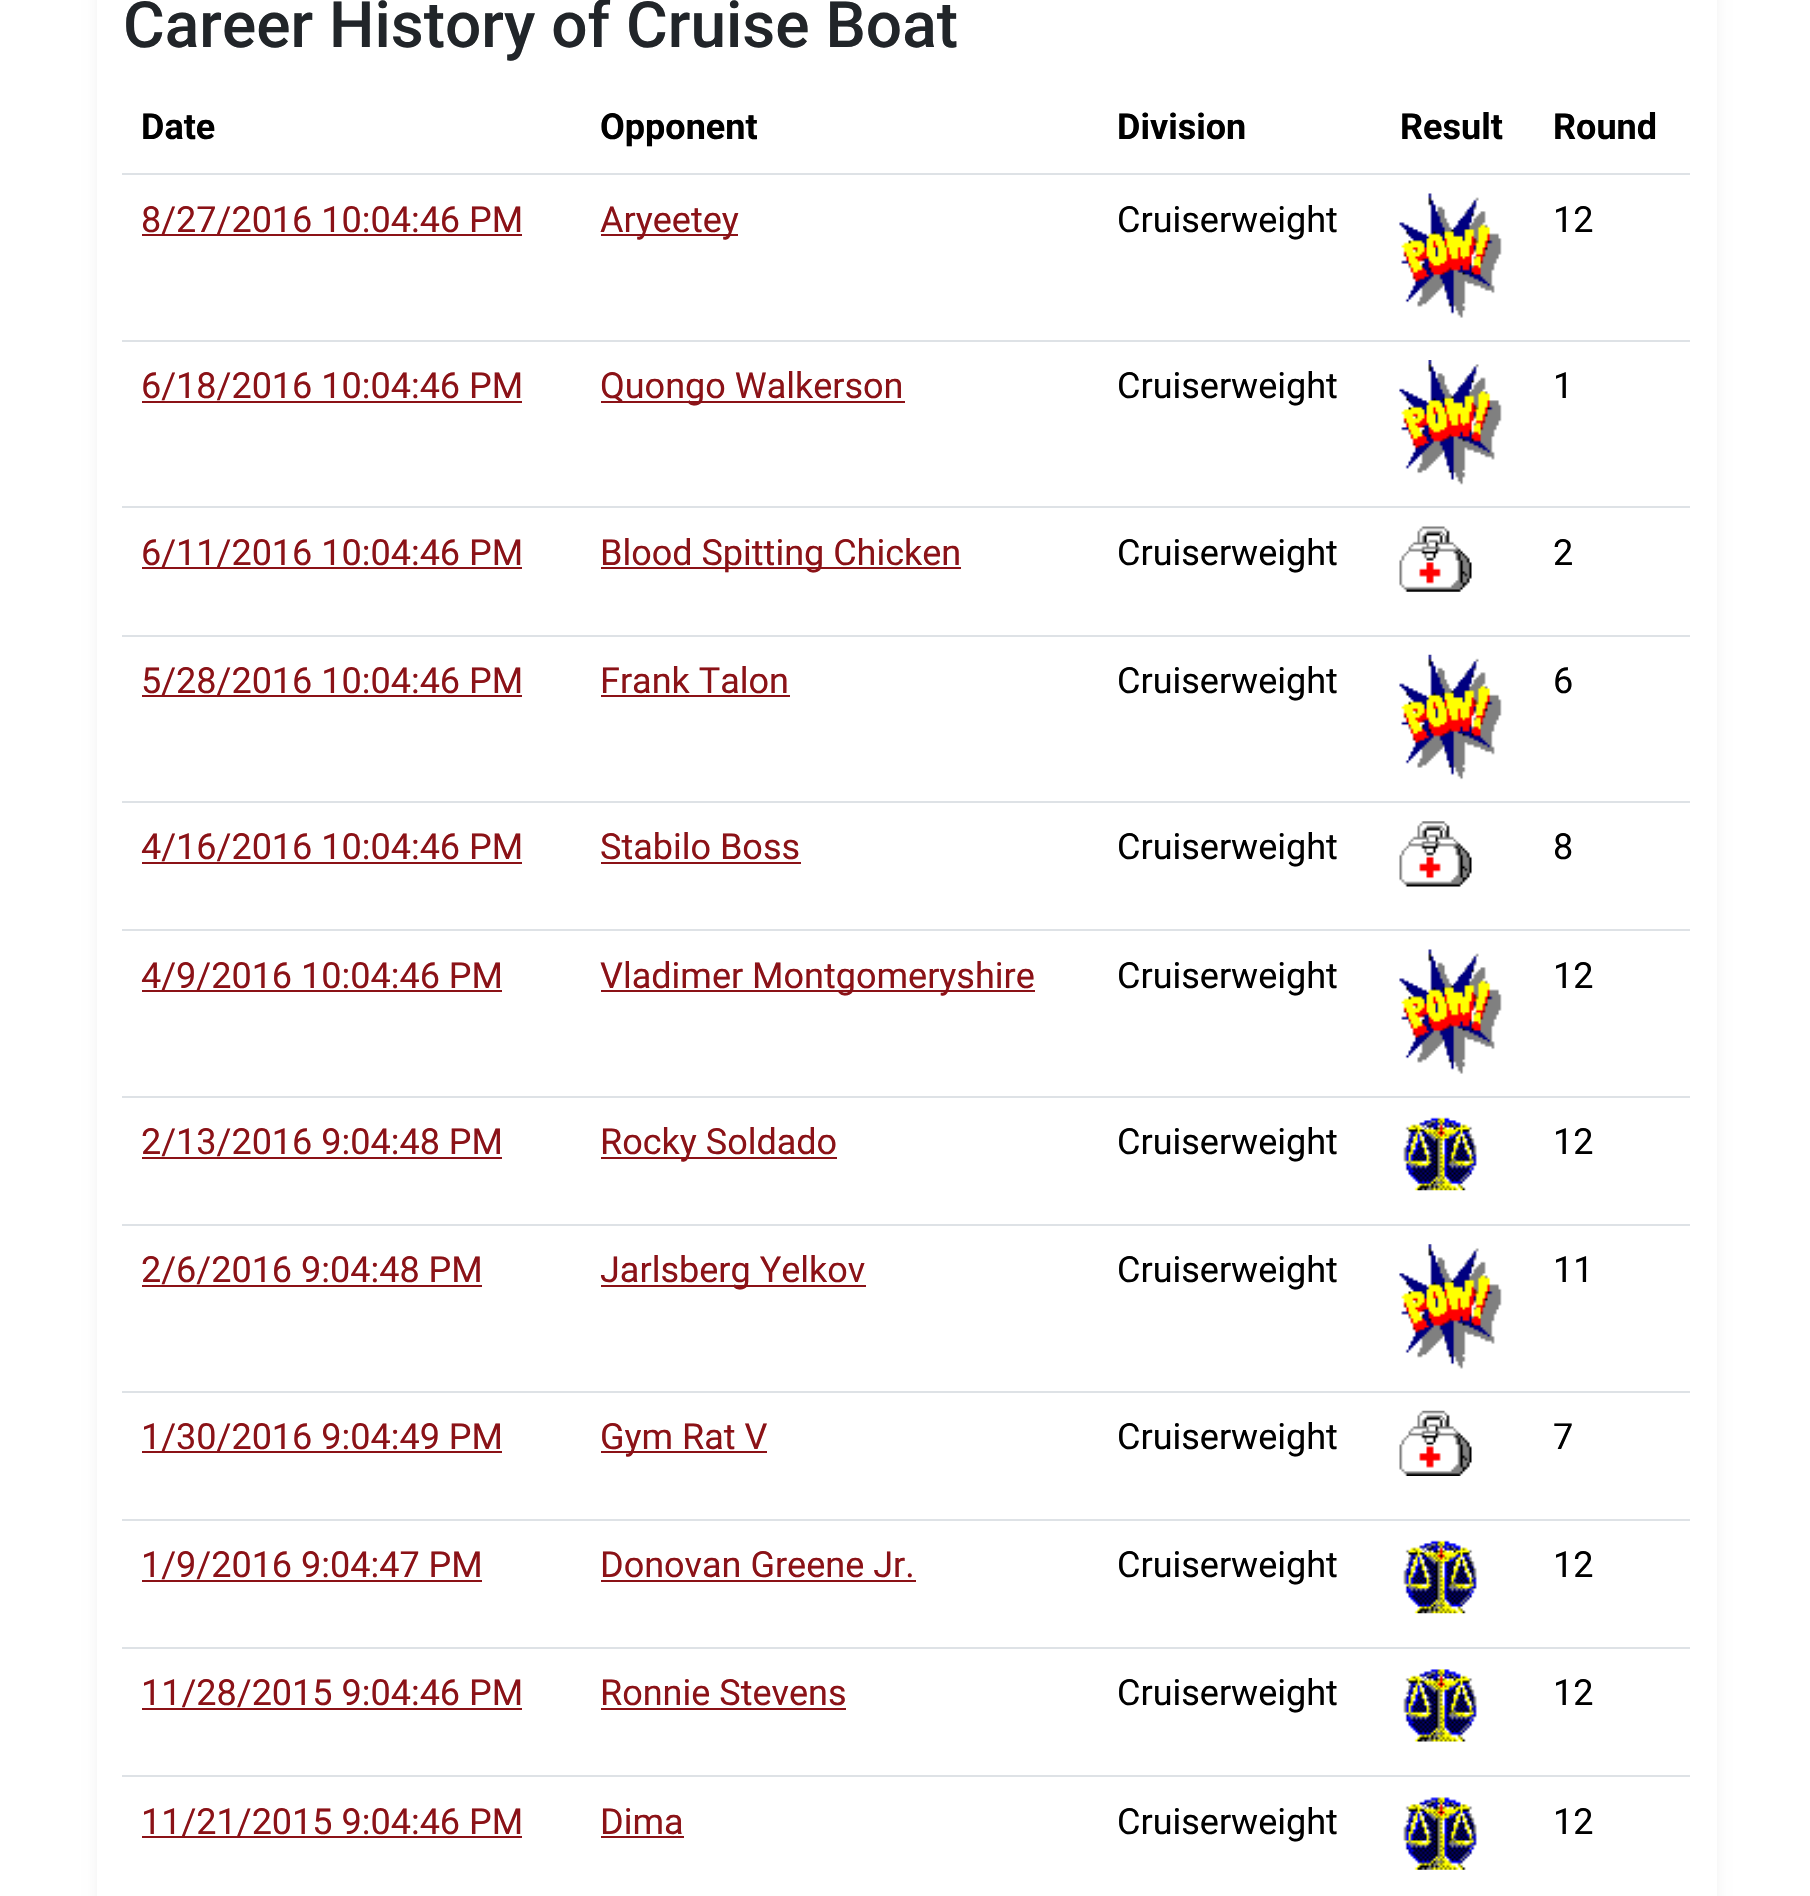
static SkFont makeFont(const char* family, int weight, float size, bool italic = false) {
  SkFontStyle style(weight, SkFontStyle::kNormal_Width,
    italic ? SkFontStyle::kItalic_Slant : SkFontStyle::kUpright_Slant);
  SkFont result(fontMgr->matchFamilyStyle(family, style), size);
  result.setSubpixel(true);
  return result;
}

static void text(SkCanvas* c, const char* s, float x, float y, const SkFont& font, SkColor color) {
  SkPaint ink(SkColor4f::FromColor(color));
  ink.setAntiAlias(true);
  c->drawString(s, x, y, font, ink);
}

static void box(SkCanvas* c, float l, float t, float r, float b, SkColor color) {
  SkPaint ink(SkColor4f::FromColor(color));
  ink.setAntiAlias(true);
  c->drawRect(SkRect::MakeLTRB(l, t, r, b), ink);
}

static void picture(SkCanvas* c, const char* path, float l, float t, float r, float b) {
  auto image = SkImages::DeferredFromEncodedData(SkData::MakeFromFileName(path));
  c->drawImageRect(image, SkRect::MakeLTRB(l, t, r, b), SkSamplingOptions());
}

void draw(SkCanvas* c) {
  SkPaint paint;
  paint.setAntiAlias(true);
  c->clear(0xffffffff);
  paint.setColor(0x0d000000);
  paint.setMaskFilter(SkMaskFilter::MakeBlur(kNormal_SkBlurStyle, 7));
  c->drawRoundRect(SkRect::MakeLTRB(97, -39, 1717, 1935), 18, 18, paint);
  paint.setMaskFilter(nullptr);
  box(c, 97, 0, 1717, 1896, 0xffffffff);
  SkFont face1 = makeFont("Roboto", 500, 64);
  text(c, "Career History of Cruise Boat", 123, 47, face1, 0xff212529);
  SkFont face2 = makeFont("Roboto", 700, 36);
  text(c, "Date", 141, 139, face2, 0xff000000);
  text(c, "Opponent", 600, 139, face2, 0xff000000);
  text(c, "Division", 1117, 139, face2, 0xff000000);
  text(c, "Result", 1400, 139, face2, 0xff000000);
  box(c, 122, 173, 1690, 175, 0xffdee2e6);
  text(c, "Round", 1553, 139, face2, 0xff000000);
  box(c, 142, 234, 522, 236, 0xff8b1217);
  SkFont face3 = makeFont("Roboto", 400, 36);
  text(c, "8/27/2016 10:04:46 PM", 141, 232, face3, 0xff8b1217);
  box(c, 601, 234, 738, 236, 0xff8b1217);
  text(c, "Aryeetey", 600, 232, face3, 0xff8b1217);
  text(c, "Cruiserweight", 1117, 232, face3, 0xff000000);
  picture(c, "img_01.png", 1399, 193, 1502, 318);
  box(c, 122, 340, 1690, 342, 0xffdee2e6);
  text(c, "12", 1553, 232, face3, 0xff000000);
  text(c, "6/18/2016 10:04:46 PM", 141, 398, face3, 0xff8b1217);
  box(c, 142, 401, 522, 403, 0xff8b1217);
  box(c, 601, 401, 905, 403, 0xff8b1217);
  text(c, "Quongo Walkerson", 600, 398, face3, 0xff8b1217);
  text(c, "Cruiserweight", 1117, 398, face3, 0xff000000);
  picture(c, "img_02.png", 1399, 360, 1502, 485);
  box(c, 122, 506, 1690, 508, 0xffdee2e6);
  text(c, "1", 1553, 398, face3, 0xff000000);
  box(c, 142, 567, 522, 569, 0xff8b1217);
  text(c, "6/11/2016 10:04:46 PM", 141, 565, face3, 0xff8b1217);
  box(c, 601, 567, 961, 569, 0xff8b1217);
  text(c, "Blood Spitting Chicken", 600, 565, face3, 0xff8b1217);
  text(c, "Cruiserweight", 1117, 565, face3, 0xff000000);
  picture(c, "img_03.png", 1399, 526, 1472, 592);
  box(c, 122, 635, 1690, 637, 0xffdee2e6);
  text(c, "2", 1553, 565, face3, 0xff000000);
  box(c, 142, 695, 522, 697, 0xff8b1217);
  text(c, "5/28/2016 10:04:46 PM", 141, 693, face3, 0xff8b1217);
  text(c, "Frank Talon", 600, 693, face3, 0xff8b1217);
  box(c, 601, 695, 790, 697, 0xff8b1217);
  text(c, "Cruiserweight", 1117, 693, face3, 0xff000000);
  picture(c, "img_04.png", 1399, 654, 1502, 780);
  box(c, 122, 801, 1690, 803, 0xffdee2e6);
  text(c, "6", 1553, 693, face3, 0xff000000);
  text(c, "4/16/2016 10:04:46 PM", 141, 859, face3, 0xff8b1217);
  box(c, 142, 862, 522, 864, 0xff8b1217);
  text(c, "Stabilo Boss", 600, 859, face3, 0xff8b1217);
  box(c, 601, 862, 801, 864, 0xff8b1217);
  text(c, "Cruiserweight", 1117, 859, face3, 0xff000000);
  picture(c, "img_05.png", 1399, 821, 1472, 887);
  box(c, 122, 929, 1690, 931, 0xffdee2e6);
  text(c, "8", 1553, 859, face3, 0xff000000);
  box(c, 142, 990, 502, 992, 0xff8b1217);
  text(c, "4/9/2016 10:04:46 PM", 141, 988, face3, 0xff8b1217);
  box(c, 601, 990, 1035, 992, 0xff8b1217);
  text(c, "Vladimer Montgomeryshire", 600, 988, face3, 0xff8b1217);
  text(c, "Cruiserweight", 1117, 988, face3, 0xff000000);
  picture(c, "img_01.png", 1399, 949, 1502, 1074);
  box(c, 122, 1096, 1690, 1098, 0xffdee2e6);
  text(c, "12", 1553, 988, face3, 0xff000000);
  text(c, "2/13/2016 9:04:48 PM", 141, 1154, face3, 0xff8b1217);
  box(c, 142, 1157, 502, 1159, 0xff8b1217);
  box(c, 601, 1157, 837, 1159, 0xff8b1217);
  text(c, "Rocky Soldado", 600, 1154, face3, 0xff8b1217);
  text(c, "Cruiserweight", 1117, 1154, face3, 0xff000000);
  picture(c, "img_06.png", 1403, 1117, 1477, 1191);
  box(c, 122, 1224, 1690, 1226, 0xffdee2e6);
  text(c, "12", 1553, 1154, face3, 0xff000000);
  text(c, "2/6/2016 9:04:48 PM", 141, 1282, face3, 0xff8b1217);
  box(c, 142, 1285, 482, 1287, 0xff8b1217);
  box(c, 601, 1285, 866, 1287, 0xff8b1217);
  text(c, "Jarlsberg Yelkov", 600, 1282, face3, 0xff8b1217);
  text(c, "Cruiserweight", 1117, 1282, face3, 0xff000000);
  picture(c, "img_07.png", 1399, 1244, 1502, 1369);
  box(c, 122, 1391, 1690, 1393, 0xffdee2e6);
  text(c, "11", 1553, 1282, face3, 0xff000000);
  box(c, 142, 1451, 502, 1453, 0xff8b1217);
  text(c, "1/30/2016 9:04:49 PM", 141, 1449, face3, 0xff8b1217);
  box(c, 601, 1451, 767, 1453, 0xff8b1217);
  text(c, "Gym Rat V", 600, 1449, face3, 0xff8b1217);
  text(c, "Cruiserweight", 1117, 1449, face3, 0xff000000);
  picture(c, "img_08.png", 1399, 1410, 1472, 1476);
  box(c, 122, 1519, 1690, 1521, 0xffdee2e6);
  text(c, "7", 1553, 1449, face3, 0xff000000);
  text(c, "1/9/2016 9:04:47 PM", 141, 1577, face3, 0xff8b1217);
  box(c, 142, 1580, 482, 1582, 0xff8b1217);
  text(c, "Donovan Greene Jr.", 600, 1577, face3, 0xff8b1217);
  box(c, 601, 1580, 916, 1582, 0xff8b1217);
  text(c, "Cruiserweight", 1117, 1577, face3, 0xff000000);
  picture(c, "img_09.png", 1403, 1540, 1477, 1614);
  box(c, 122, 1647, 1690, 1649, 0xffdee2e6);
  text(c, "12", 1553, 1577, face3, 0xff000000);
  text(c, "11/28/2015 9:04:46 PM", 141, 1705, face3, 0xff8b1217);
  box(c, 142, 1708, 522, 1710, 0xff8b1217);
  text(c, "Ronnie Stevens", 600, 1705, face3, 0xff8b1217);
  box(c, 601, 1708, 846, 1710, 0xff8b1217);
  text(c, "Cruiserweight", 1117, 1705, face3, 0xff000000);
  picture(c, "img_10.png", 1403, 1669, 1477, 1742);
  box(c, 122, 1775, 1690, 1777, 0xffdee2e6);
  text(c, "12", 1553, 1705, face3, 0xff000000);
  box(c, 142, 1836, 522, 1838, 0xff8b1217);
  text(c, "11/21/2015 9:04:46 PM", 141, 1834, face3, 0xff8b1217);
  text(c, "Dima", 600, 1834, face3, 0xff8b1217);
  box(c, 601, 1836, 684, 1838, 0xff8b1217);
  text(c, "Cruiserweight", 1117, 1834, face3, 0xff000000);
  picture(c, "img_11.png", 1403, 1797, 1477, 1870);
  text(c, "12", 1553, 1834, face3, 0xff000000);
}
